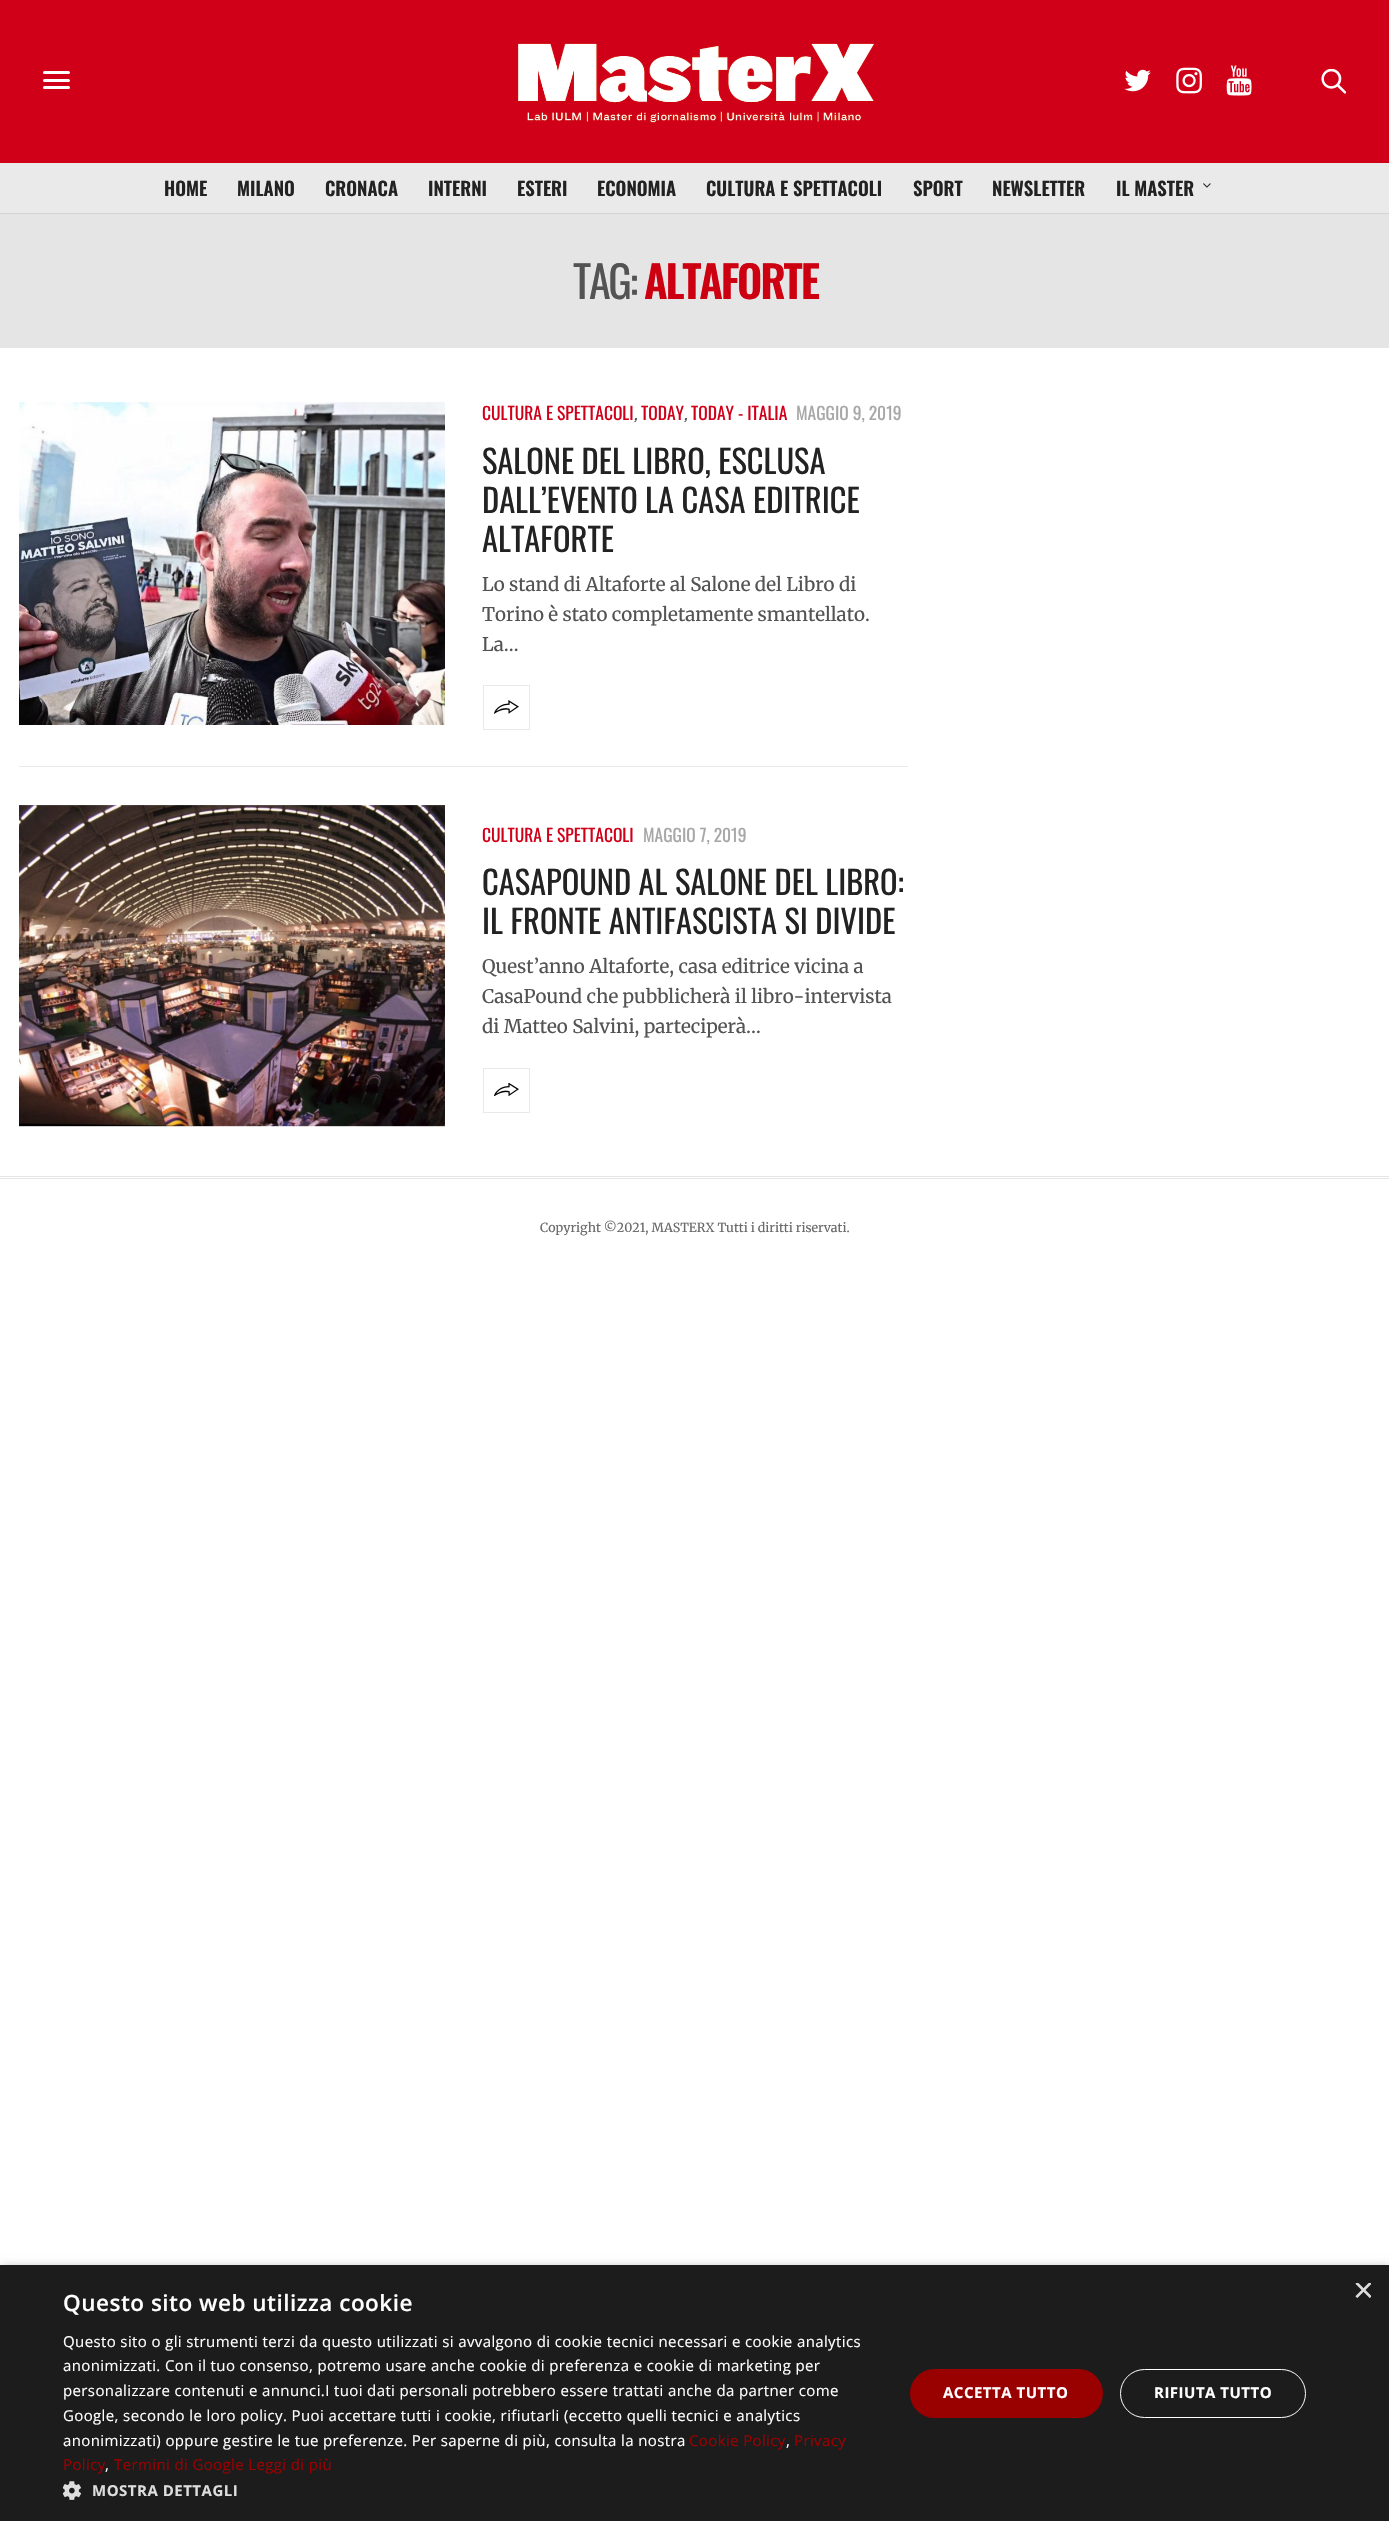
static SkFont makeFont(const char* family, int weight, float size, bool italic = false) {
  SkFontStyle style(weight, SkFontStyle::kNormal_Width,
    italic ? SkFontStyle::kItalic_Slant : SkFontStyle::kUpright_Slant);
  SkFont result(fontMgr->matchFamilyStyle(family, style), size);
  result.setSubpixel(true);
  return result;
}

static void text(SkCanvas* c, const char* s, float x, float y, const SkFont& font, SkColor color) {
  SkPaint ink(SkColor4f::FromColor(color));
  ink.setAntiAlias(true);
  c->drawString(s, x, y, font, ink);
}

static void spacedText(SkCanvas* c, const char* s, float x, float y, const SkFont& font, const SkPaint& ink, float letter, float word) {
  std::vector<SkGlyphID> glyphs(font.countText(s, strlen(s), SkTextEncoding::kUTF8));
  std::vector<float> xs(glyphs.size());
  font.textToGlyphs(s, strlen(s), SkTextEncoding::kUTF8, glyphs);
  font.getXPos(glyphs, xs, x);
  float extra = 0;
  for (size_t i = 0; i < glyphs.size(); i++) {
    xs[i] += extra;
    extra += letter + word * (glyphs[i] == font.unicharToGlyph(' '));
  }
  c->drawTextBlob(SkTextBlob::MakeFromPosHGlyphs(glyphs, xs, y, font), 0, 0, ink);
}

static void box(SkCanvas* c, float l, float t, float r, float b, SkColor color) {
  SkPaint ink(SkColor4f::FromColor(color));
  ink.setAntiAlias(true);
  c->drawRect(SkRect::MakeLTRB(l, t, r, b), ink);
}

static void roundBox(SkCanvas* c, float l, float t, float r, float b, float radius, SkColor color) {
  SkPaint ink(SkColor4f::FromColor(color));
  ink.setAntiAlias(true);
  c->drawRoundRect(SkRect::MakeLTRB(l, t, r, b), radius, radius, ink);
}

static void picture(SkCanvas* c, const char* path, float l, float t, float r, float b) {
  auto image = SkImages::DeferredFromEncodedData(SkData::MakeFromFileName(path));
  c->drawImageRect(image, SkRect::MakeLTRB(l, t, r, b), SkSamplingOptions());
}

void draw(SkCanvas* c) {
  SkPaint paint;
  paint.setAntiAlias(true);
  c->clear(0xffffffff);
  box(c, 0, 0, 1389, 163, 0xffd10019);
  roundBox(c, 43, 71, 70, 74, 1.5f, 0xffffffff);
  roundBox(c, 43, 79, 70, 82, 1.5f, 0xffffffff);
  roundBox(c, 43, 86, 70, 89, 1.5f, 0xffffffff);
  picture(c, "img_01.png", 517, 43, 875, 123);
  picture(c, "img_02.png", 1124, 69, 1151, 92);
  picture(c, "img_03.png", 1176, 67, 1202, 94);
  picture(c, "img_04.png", 1226, 65, 1252, 96);
  picture(c, "img_05.png", 1321, 69, 1346, 94);
  box(c, 0, 163, 1389, 213, 0xffeaeaea);
  box(c, 0, 213, 1389, 214, 0xffd3d3d3);
  SkFont face1 = makeFont("Oswald", 600, 18.75f);
  text(c, "HOME", 164, 196, face1, 0xff222222);
  text(c, "MILANO", 237, 196, face1, 0xff222222);
  text(c, "CRONACA", 325, 196, face1, 0xff222222);
  text(c, "INTERNI", 428, 196, face1, 0xff222222);
  text(c, "ESTERI", 517, 196, face1, 0xff222222);
  text(c, "ECONOMIA", 597, 196, face1, 0xff222222);
  text(c, "CULTURA E SPETTACOLI", 706, 196, face1, 0xff222222);
  text(c, "SPORT", 913, 196, face1, 0xff222222);
  text(c, "NEWSLETTER", 992, 196, face1, 0xff222222);
  text(c, "IL MASTER", 1116, 196, face1, 0xff222222);
  picture(c, "img_06.png", 1203, 183, 1211, 188);
  box(c, 0, 214, 1389, 348, 0xffe5e5e5);
  SkFont face2 = makeFont("Oswald", 400, 44);
  paint.setColor(0xff545353);
  spacedText(c, "TAG:", 573, 299, face2, paint, -2.25f, 0);
  SkFont face3 = makeFont("Oswald", 600, 44);
  paint.setColor(0xffcc0011);
  spacedText(c, "ALTAFORTE", 644, 299, face3, paint, -2.25f, 0);
  box(c, 19, 766, 908, 767, 0xffeaeaea);
  picture(c, "img_07.png", 19, 402, 445, 725);
  SkFont face4 = makeFont("Oswald", 400, 17.5f);
  text(c, "CULTURA E SPETTACOLI", 482, 420, face4, 0xffd10019);
  SkFont face5 = makeFont("Oswald", 400, 17.5f, true);
  text(c, ",", 634, 420, face5, 0xff545353);
  text(c, "TODAY", 641, 420, face4, 0xffd10019);
  text(c, ",", 684, 420, face5, 0xff545353);
  text(c, "TODAY - ITALIA", 691, 420, face4, 0xffd10019);
  text(c, "MAGGIO 9, 2019", 796, 420, face4, 0xffa7a7a7);
  SkFont face6 = makeFont("Oswald", 400, 32.5f);
  text(c, "SALONE DEL LIBRO, ESCLUSA", 482, 474, face6, 0xff222222);
  text(c, "DALL’EVENTO LA CASA EDITRICE", 482, 513, face6, 0xff222222);
  text(c, "ALTAFORTE", 482, 552, face6, 0xff222222);
  SkFont face7 = makeFont("Merriweather", 400, 18.75f);
  text(c, "Lo stand di Altaforte al Salone del Libro di", 482, 591, face7, 0xff545353);
  text(c, "Torino è stato completamente smantellato.", 482, 621, face7, 0xff545353);
  text(c, "La…", 482, 651, face7, 0xff545353);
  paint.setStyle(SkPaint::kStroke_Style);
  paint.setStrokeWidth(1);
  paint.setColor(0xffe9e9e9);
  c->drawRect(SkRect::MakeLTRB(483.5f, 685.5f, 529.5f, 729.5f), paint);
  picture(c, "img_08.png", 494, 700, 519, 714);
  picture(c, "img_09.png", 19, 805, 445, 1127);
  text(c, "CULTURA E SPETTACOLI", 482, 842, face4, 0xffd10019);
  text(c, "MAGGIO 7, 2019", 643, 842, face4, 0xffa7a7a7);
  text(c, "CASAPOUND AL SALONE DEL LIBRO:", 482, 895, face6, 0xff222222);
  text(c, "IL FRONTE ANTIFASCISTA SI DIVIDE", 482, 934, face6, 0xff222222);
  text(c, "Quest’anno Altaforte, casa editrice vicina a", 482, 973, face7, 0xff545353);
  text(c, "CasaPound che pubblicherà il libro-intervista", 482, 1003, face7, 0xff545353);
  text(c, "di Matteo Salvini, parteciperà…", 482, 1033, face7, 0xff545353);
  c->drawRect(SkRect::MakeLTRB(483.5f, 1068.5f, 529.5f, 1112.5f), paint);
  picture(c, "img_10.png", 494, 1083, 519, 1096);
  box(c, 0, 1176, 1389, 1177, 0xffe6e6e6);
  box(c, 0, 1178, 1389, 1179, 0xffe6e6e6);
  SkFont face8 = makeFont("Merriweather", 400, 12.5f);
  text(c, "Copyright ©2021, MASTERX Tutti i diritti riservati.", 540, 1232, face8, 0xff6a6a6a);
  paint.setStyle(SkPaint::kFill_Style);
  paint.setColor(0x59000000);
  paint.setMaskFilter(SkMaskFilter::MakeBlur(kNormal_SkBlurStyle, 5));
  c->drawRect(SkRect::MakeLTRB(1, 2268, 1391, 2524), paint);
  paint.setMaskFilter(nullptr);
  box(c, 0, 2265, 1389, 2521, 0xff1c1c1c);
  c->save();
  c->clipRect(SkRect::MakeLTRB(1353, 2283, 1371, 2301));
  SkFont face9 = makeFont("Liberation Sans", 400, 36);
  text(c, "×", 1353, 2302, face9, 0xffdddddd);
  c->restore();
  SkFont face10 = makeFont("Open Sans", 600, 22.5f);
  paint.setColor(0xffffffff);
  spacedText(c, "Questo sito web utilizza cookie", 63, 2311, face10, paint, 0.5f, 0);
  SkFont face11 = makeFont("Open Sans", 400, 15);
  spacedText(c, "Questo sito o gli strumenti terzi da questo utilizzati si avvalgono di cookie tecnici necessari e cookie analytics", 63, 2347, face11, paint, 0.38f, 0);
  spacedText(c, "anonimizzati. Con il tuo consenso, potremo usare anche cookie di preferenza e cookie di marketing per", 63, 2371, face11, paint, 0.38f, 0);
  spacedText(c, "personalizzare contenuti e annunci.I tuoi dati personali potrebbero essere trattati anche da partner come", 63, 2396, face11, paint, 0.38f, 0);
  spacedText(c, "Google, secondo le loro policy. Puoi accettare tutti i cookie, rifiutarli (eccetto quelli tecnici e analytics", 63, 2421, face11, paint, 0.38f, 0);
  spacedText(c, "anonimizzati) oppure gestire le tue preferenze. Per saperne di più, consulta la nostra", 63, 2446, face11, paint, 0.38f, 0);
  paint.setColor(0xff990000);
  spacedText(c, "Cookie Policy", 689, 2446, face11, paint, 0.38f, 0);
  paint.setColor(0xffffffff);
  spacedText(c, ",", 786, 2446, face11, paint, 0.38f, 0);
  paint.setColor(0xff990000);
  spacedText(c, "Privacy", 794, 2446, face11, paint, 0.38f, 0);
  spacedText(c, "Policy", 63, 2470, face11, paint, 0.38f, 0);
  paint.setColor(0xffffffff);
  spacedText(c, ",", 105, 2470, face11, paint, 0.38f, 0);
  paint.setColor(0xff990000);
  spacedText(c, "Termini di Google Leggi di più", 114, 2470, face11, paint, 0.38f, 0);
  picture(c, "img_11.png", 63, 2481, 81, 2500);
  SkFont face12 = makeFont("Open Sans", 700, 15);
  paint.setColor(0xffdddddd);
  spacedText(c, "MOSTRA DETTAGLI", 92, 2496, face12, paint, 0.5f, 0);
  roundBox(c, 910, 2369, 1103, 2418, 24.5f, 0xff990000);
  paint.setColor(0xffffffff);
  spacedText(c, "ACCETTA TUTTO", 943, 2398, face12, paint, 0.5f, 0);
  paint.setStyle(SkPaint::kStroke_Style);
  c->drawRoundRect(SkRect::MakeLTRB(1120.5f, 2369.5f, 1305.5f, 2417.5f), 24, 24, paint);
  paint.setStyle(SkPaint::kFill_Style);
  spacedText(c, "RIFIUTA TUTTO", 1154, 2398, face12, paint, 0.5f, 0);
}
